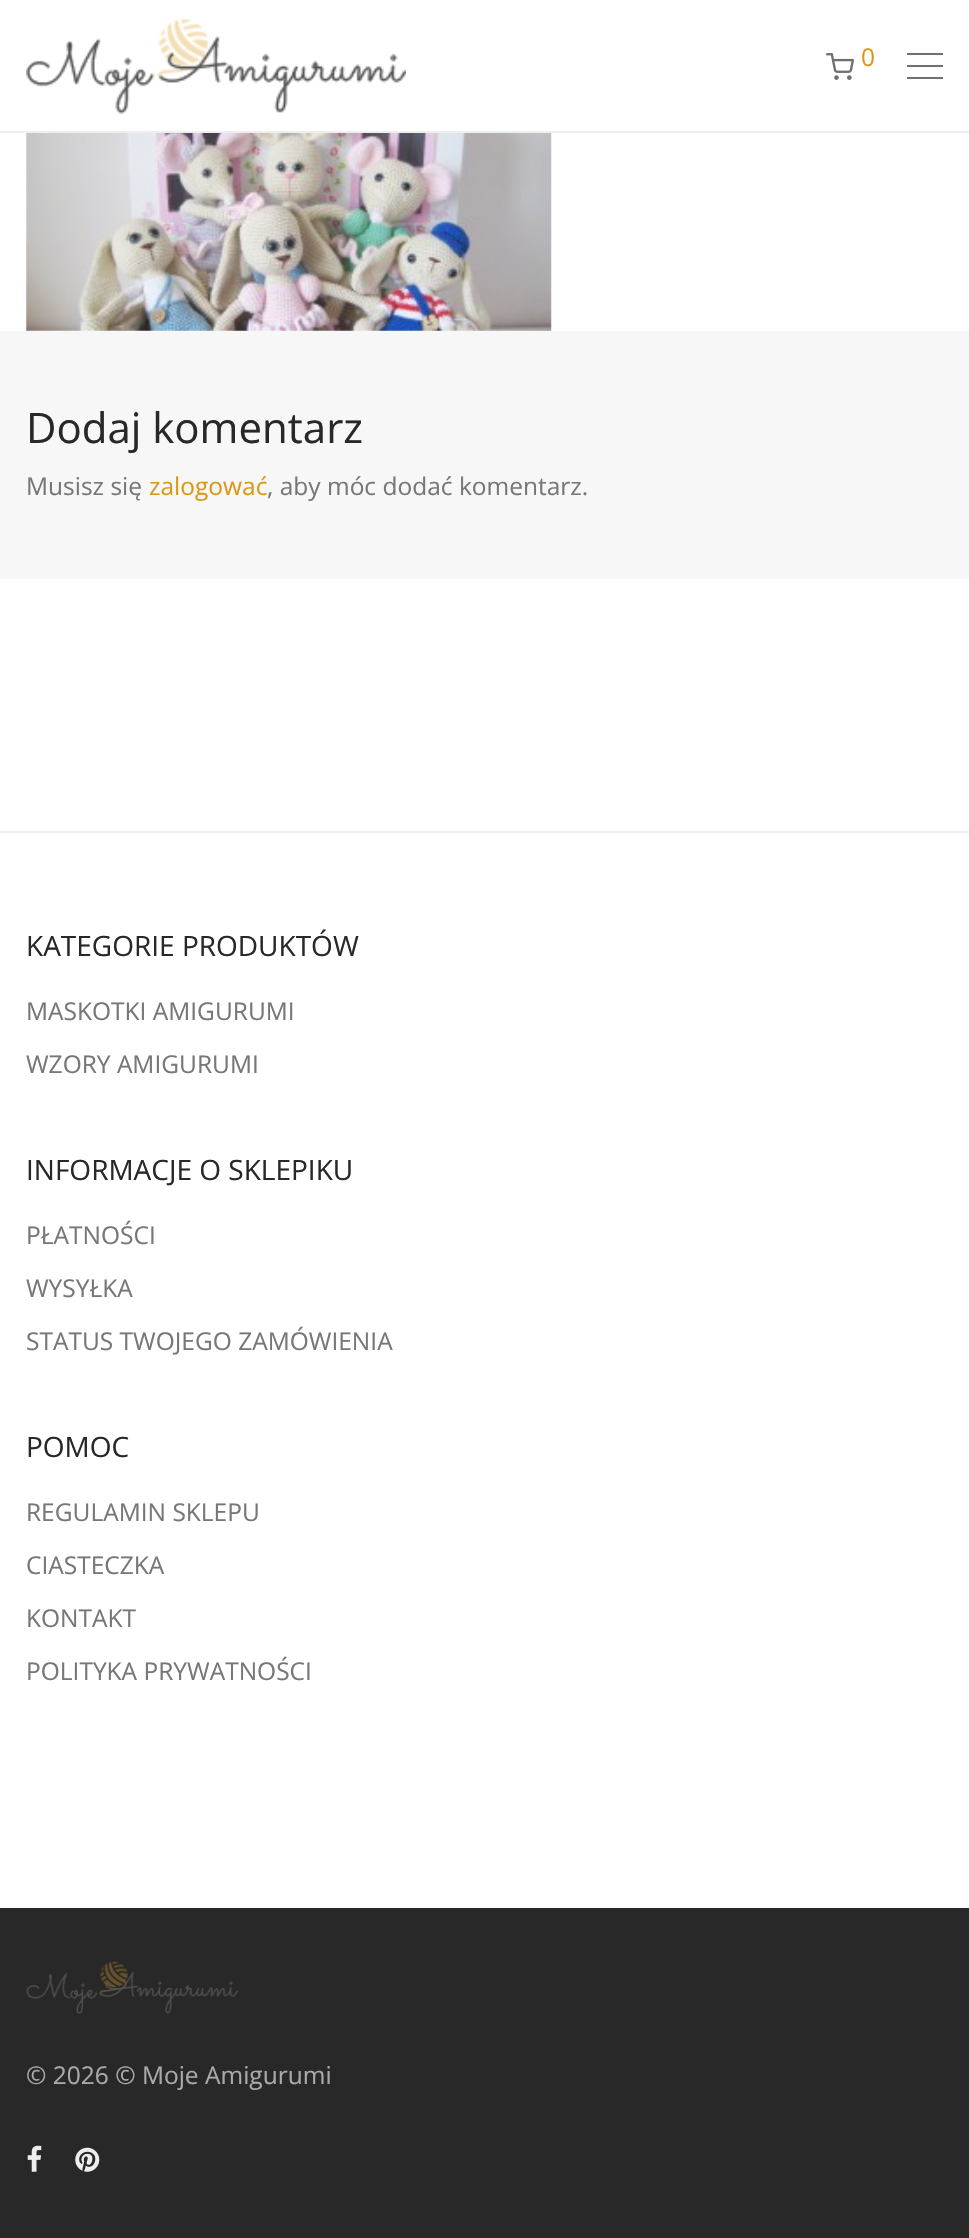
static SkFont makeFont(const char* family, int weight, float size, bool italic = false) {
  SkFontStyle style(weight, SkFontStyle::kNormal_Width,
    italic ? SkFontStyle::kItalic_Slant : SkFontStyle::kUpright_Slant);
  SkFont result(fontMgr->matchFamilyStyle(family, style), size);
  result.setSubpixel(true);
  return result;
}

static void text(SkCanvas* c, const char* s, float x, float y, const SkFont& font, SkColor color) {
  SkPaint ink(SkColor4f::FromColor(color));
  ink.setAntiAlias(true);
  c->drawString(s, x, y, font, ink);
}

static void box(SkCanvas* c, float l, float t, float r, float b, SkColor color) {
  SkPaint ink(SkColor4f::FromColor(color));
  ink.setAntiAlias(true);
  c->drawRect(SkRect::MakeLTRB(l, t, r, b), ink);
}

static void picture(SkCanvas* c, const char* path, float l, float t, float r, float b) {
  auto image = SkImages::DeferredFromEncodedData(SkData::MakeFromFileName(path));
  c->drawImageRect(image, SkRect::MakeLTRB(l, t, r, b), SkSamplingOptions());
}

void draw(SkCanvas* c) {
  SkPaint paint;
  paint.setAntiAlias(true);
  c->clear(0xffffffff);
  box(c, 0, 131, 969, 133, 0xffeeeeee);
  picture(c, "img_01.png", 26, 19, 406, 115);
  picture(c, "img_02.png", 826, 53, 854, 80);
  SkFont face1 = makeFont("Open Sans", 400, 24.5f);
  text(c, "0", 861, 66, face1, 0xffdc9814);
  box(c, 907, 53, 943, 55, 0xff707070);
  box(c, 907, 65, 943, 67, 0xff707070);
  box(c, 907, 77, 943, 79, 0xff707070);
  picture(c, "img_03.png", 26, 133, 552, 331);
  box(c, 0, 331, 969, 579, 0xfff7f7f7);
  SkFont face2 = makeFont("Open Sans", 400, 42);
  text(c, "Dodaj komentarz", 26, 443, face2, 0xff282828);
  text(c, "Musisz się", 26, 495, face1, 0xff777777);
  text(c, "zalogować", 149, 495, face1, 0xffdc9814);
  text(c, ", aby móc dodać komentarz.", 267, 495, face1, 0xff777777);
  box(c, 0, 831, 969, 833, 0xffeeeeee);
  SkFont face3 = makeFont("Open Sans", 400, 28);
  text(c, "KATEGORIE PRODUKTÓW", 26, 956, face3, 0xff282828);
  text(c, "MASKOTKI AMIGURUMI", 26, 1020, face1, 0xff777777);
  text(c, "WZORY AMIGURUMI", 26, 1073, face1, 0xff777777);
  text(c, "INFORMACJE O SKLEPIKU", 26, 1180, face3, 0xff282828);
  text(c, "PŁATNOŚCI", 26, 1244, face1, 0xff777777);
  text(c, "WYSYŁKA", 26, 1297, face1, 0xff777777);
  text(c, "STATUS TWOJEGO ZAMÓWIENIA", 26, 1350, face1, 0xff777777);
  text(c, "POMOC", 26, 1457, face3, 0xff282828);
  text(c, "REGULAMIN SKLEPU", 26, 1521, face1, 0xff777777);
  text(c, "CIASTECZKA", 26, 1574, face1, 0xff777777);
  text(c, "KONTAKT", 26, 1627, face1, 0xff777777);
  text(c, "POLITYKA PRYWATNOŚCI", 26, 1680, face1, 0xff777777);
  box(c, 0, 1908, 969, 2238, 0xff282828);
  picture(c, "img_04.png", 26, 1961, 238, 2014);
  text(c, "© 2026 © Moje Amigurumi", 26, 2084, face1, 0xffaaaaaa);
  picture(c, "img_05.png", 27, 2145, 42, 2172);
  picture(c, "img_06.png", 75, 2147, 100, 2172);
}
